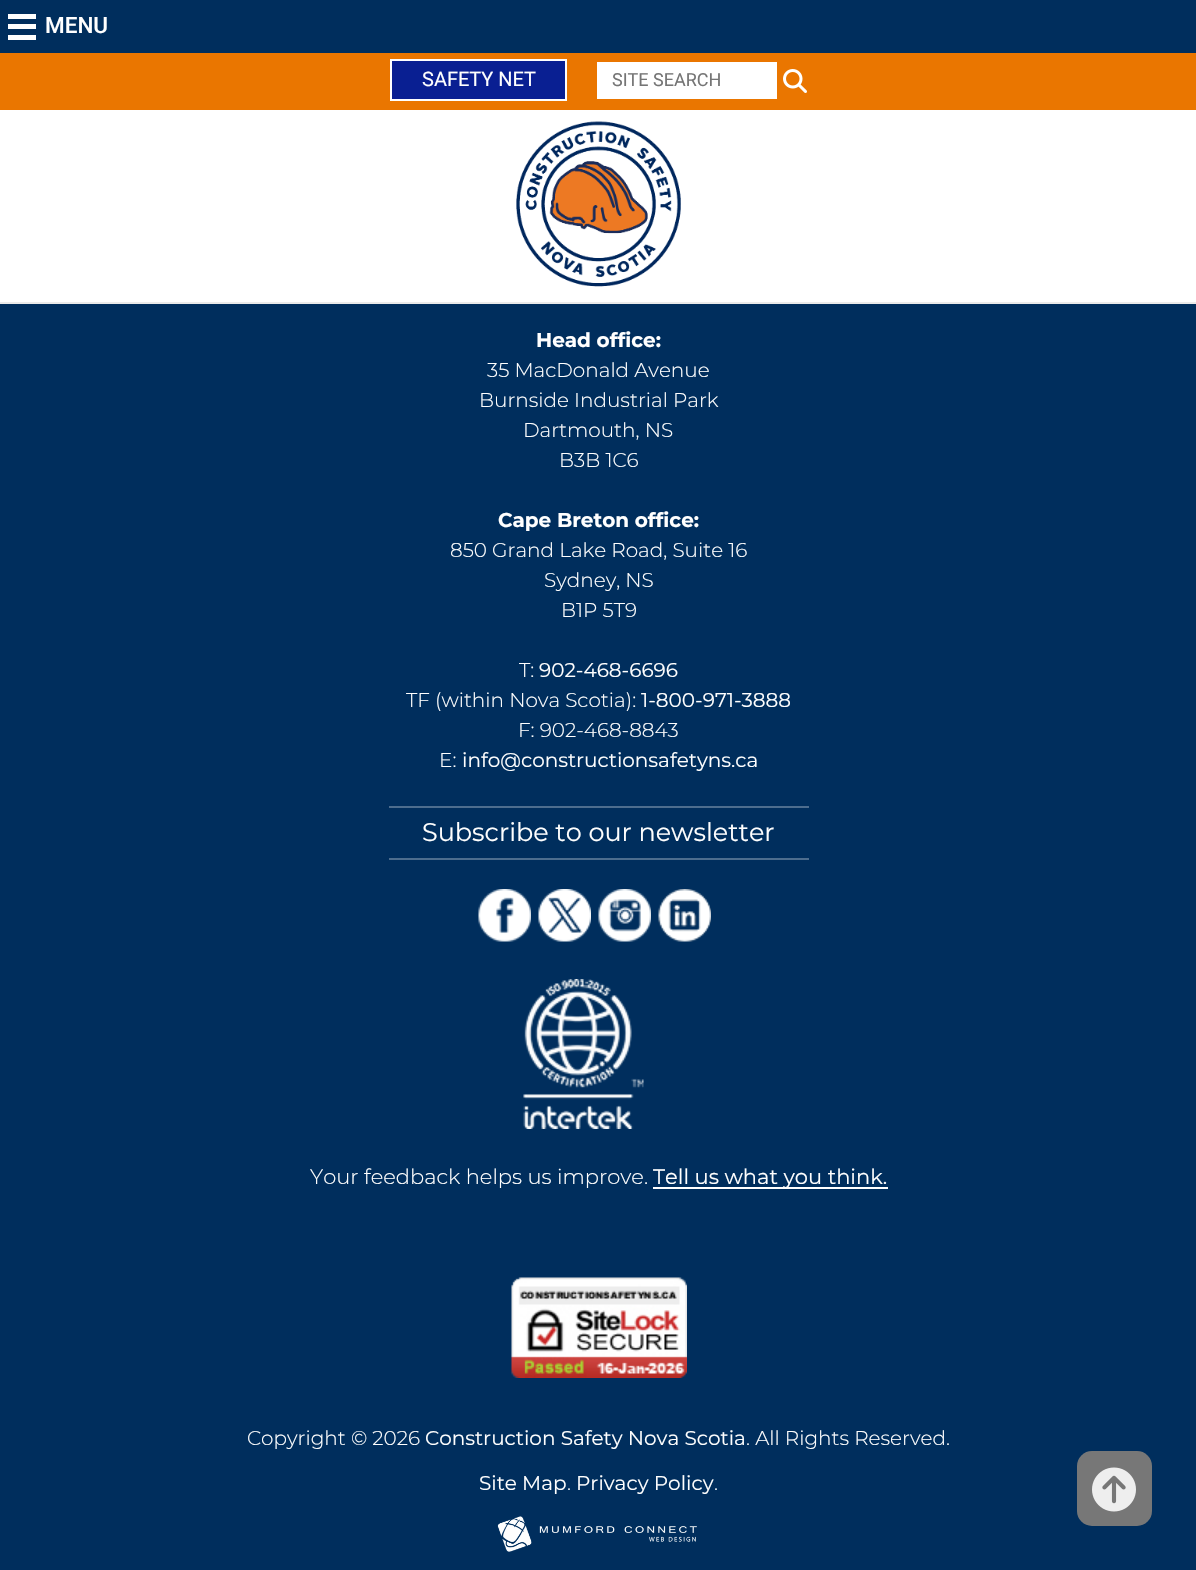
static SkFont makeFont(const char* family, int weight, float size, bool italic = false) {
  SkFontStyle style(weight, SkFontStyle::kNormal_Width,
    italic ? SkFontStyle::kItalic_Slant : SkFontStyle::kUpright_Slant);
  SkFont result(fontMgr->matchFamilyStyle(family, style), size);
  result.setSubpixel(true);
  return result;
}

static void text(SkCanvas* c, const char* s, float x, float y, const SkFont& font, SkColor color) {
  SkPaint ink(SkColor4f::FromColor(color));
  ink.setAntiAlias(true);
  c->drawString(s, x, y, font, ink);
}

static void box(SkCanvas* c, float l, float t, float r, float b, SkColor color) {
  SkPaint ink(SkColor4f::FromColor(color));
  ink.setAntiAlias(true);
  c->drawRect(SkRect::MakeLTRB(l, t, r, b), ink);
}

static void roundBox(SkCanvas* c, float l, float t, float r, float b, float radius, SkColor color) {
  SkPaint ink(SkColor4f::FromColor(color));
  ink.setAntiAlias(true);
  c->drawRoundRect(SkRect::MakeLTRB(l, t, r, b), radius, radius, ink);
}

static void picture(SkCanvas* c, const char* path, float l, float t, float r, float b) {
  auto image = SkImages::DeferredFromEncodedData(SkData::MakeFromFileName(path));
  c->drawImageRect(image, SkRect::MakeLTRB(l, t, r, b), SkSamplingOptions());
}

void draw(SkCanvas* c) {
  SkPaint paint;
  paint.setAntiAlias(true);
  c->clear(0xff002e5d);
  box(c, 8, 14, 36, 19, 0xffffffff);
  box(c, 8, 24, 36, 29, 0xffffffff);
  SkFont face1 = makeFont("Roboto", 500, 22.5f);
  text(c, "MENU", 45, 33, face1, 0xffffffff);
  box(c, 8, 35, 36, 40, 0xffffffff);
  box(c, 0, 110, 1196, 302, 0xffffffff);
  box(c, 0, 302, 1196, 304, 0xffeaeaea);
  box(c, 0, 53, 1196, 110, 0xffea7600);
  paint.setColor(0xff091f92);
  c->drawRect(SkRect::MakeLTRB(391, 60, 566, 100), paint);
  paint.setStyle(SkPaint::kStroke_Style);
  paint.setStrokeWidth(2);
  paint.setColor(0xffffffff);
  c->drawRect(SkRect::MakeLTRB(391, 60, 566, 100), paint);
  SkFont face2 = makeFont("Roboto", 400, 20);
  text(c, "SAFETY NET", 422, 86, face2, 0xffffffff);
  box(c, 597, 62, 777, 99, 0xffffffff);
  SkFont face3 = makeFont("Roboto", 400, 18);
  text(c, "SITE SEARCH", 612, 86, face3, 0xff757575);
  picture(c, "img_01.png", 783, 69, 807, 93);
  picture(c, "img_02.png", 516, 121, 681, 287);
  SkFont face4 = makeFont("Montserrat", 700, 20);
  text(c, "Head office:", 536, 347, face4, 0xffffffff);
  SkFont face5 = makeFont("Montserrat", 300, 20);
  text(c, "35 MacDonald Avenue", 487, 377, face5, 0xffffffff);
  text(c, "Burnside Industrial Park", 479, 407, face5, 0xffffffff);
  text(c, "Dartmouth, NS", 523, 437, face5, 0xffffffff);
  text(c, "B3B 1C6", 559, 467, face5, 0xffffffff);
  text(c, "Cape Breton office:", 498, 527, face4, 0xffffffff);
  text(c, "850 Grand Lake Road, Suite 16", 450, 557, face5, 0xffffffff);
  text(c, "Sydney, NS", 544, 587, face5, 0xffffffff);
  text(c, "B1P 5T9", 561, 617, face5, 0xffffffff);
  text(c, "T:", 519, 677, face5, 0xffffffff);
  SkFont face6 = makeFont("Montserrat", 400, 20);
  text(c, "902-468-6696", 539, 677, face6, 0xffffffff);
  text(c, "TF (within Nova Scotia):", 406, 707, face5, 0xffffffff);
  text(c, "1-800-971-3888", 641, 707, face6, 0xffffffff);
  text(c, "F: 902-468-8843", 518, 737, face5, 0xffffffff);
  text(c, "E:", 439, 767, face5, 0xffffffff);
  text(c, "info@constructionsafetyns.ca", 462, 767, face6, 0xffffffff);
  box(c, 389, 806, 809, 808, 0xff4d6d8e);
  box(c, 389, 858, 809, 860, 0xff4d6d8e);
  SkFont face7 = makeFont("Montserrat", 400, 25.5f);
  text(c, "Subscribe to our newsletter", 422, 841, face7, 0xffffffff);
  picture(c, "img_03.png", 478, 889, 531, 942);
  picture(c, "img_04.png", 538, 889, 591, 942);
  picture(c, "img_05.png", 598, 889, 651, 942);
  picture(c, "img_06.png", 658, 889, 711, 942);
  picture(c, "img_07.png", 523, 979, 644, 1129);
  SkFont face8 = makeFont("Montserrat", 300, 21);
  text(c, "Your feedback helps us improve.", 310, 1184, face8, 0xffffffff);
  box(c, 653, 1187, 888, 1189, 0xffffffff);
  SkFont face9 = makeFont("Montserrat", 400, 21);
  text(c, "Tell us what you think.", 653, 1184, face9, 0xffffffff);
  picture(c, "img_08.png", 511, 1277, 687, 1378);
  text(c, "Copyright © 2026", 247, 1445, face5, 0xffffffff);
  text(c, "Construction Safety Nova Scotia", 425, 1445, face6, 0xffffffff);
  text(c, ". All Rights Reserved.", 746, 1445, face5, 0xffffffff);
  text(c, "Site Map", 479, 1490, face6, 0xffffffff);
  text(c, ".", 567, 1490, face5, 0xffffffff);
  text(c, "Privacy Policy", 576, 1490, face6, 0xffffffff);
  text(c, ".", 714, 1490, face5, 0xffffffff);
  picture(c, "img_09.png", 497, 1516, 697, 1552);
  roundBox(c, 1077, 1451, 1152, 1526, 15, 0xff777777);
  picture(c, "img_10.png", 1092, 1467, 1136, 1512);
}
